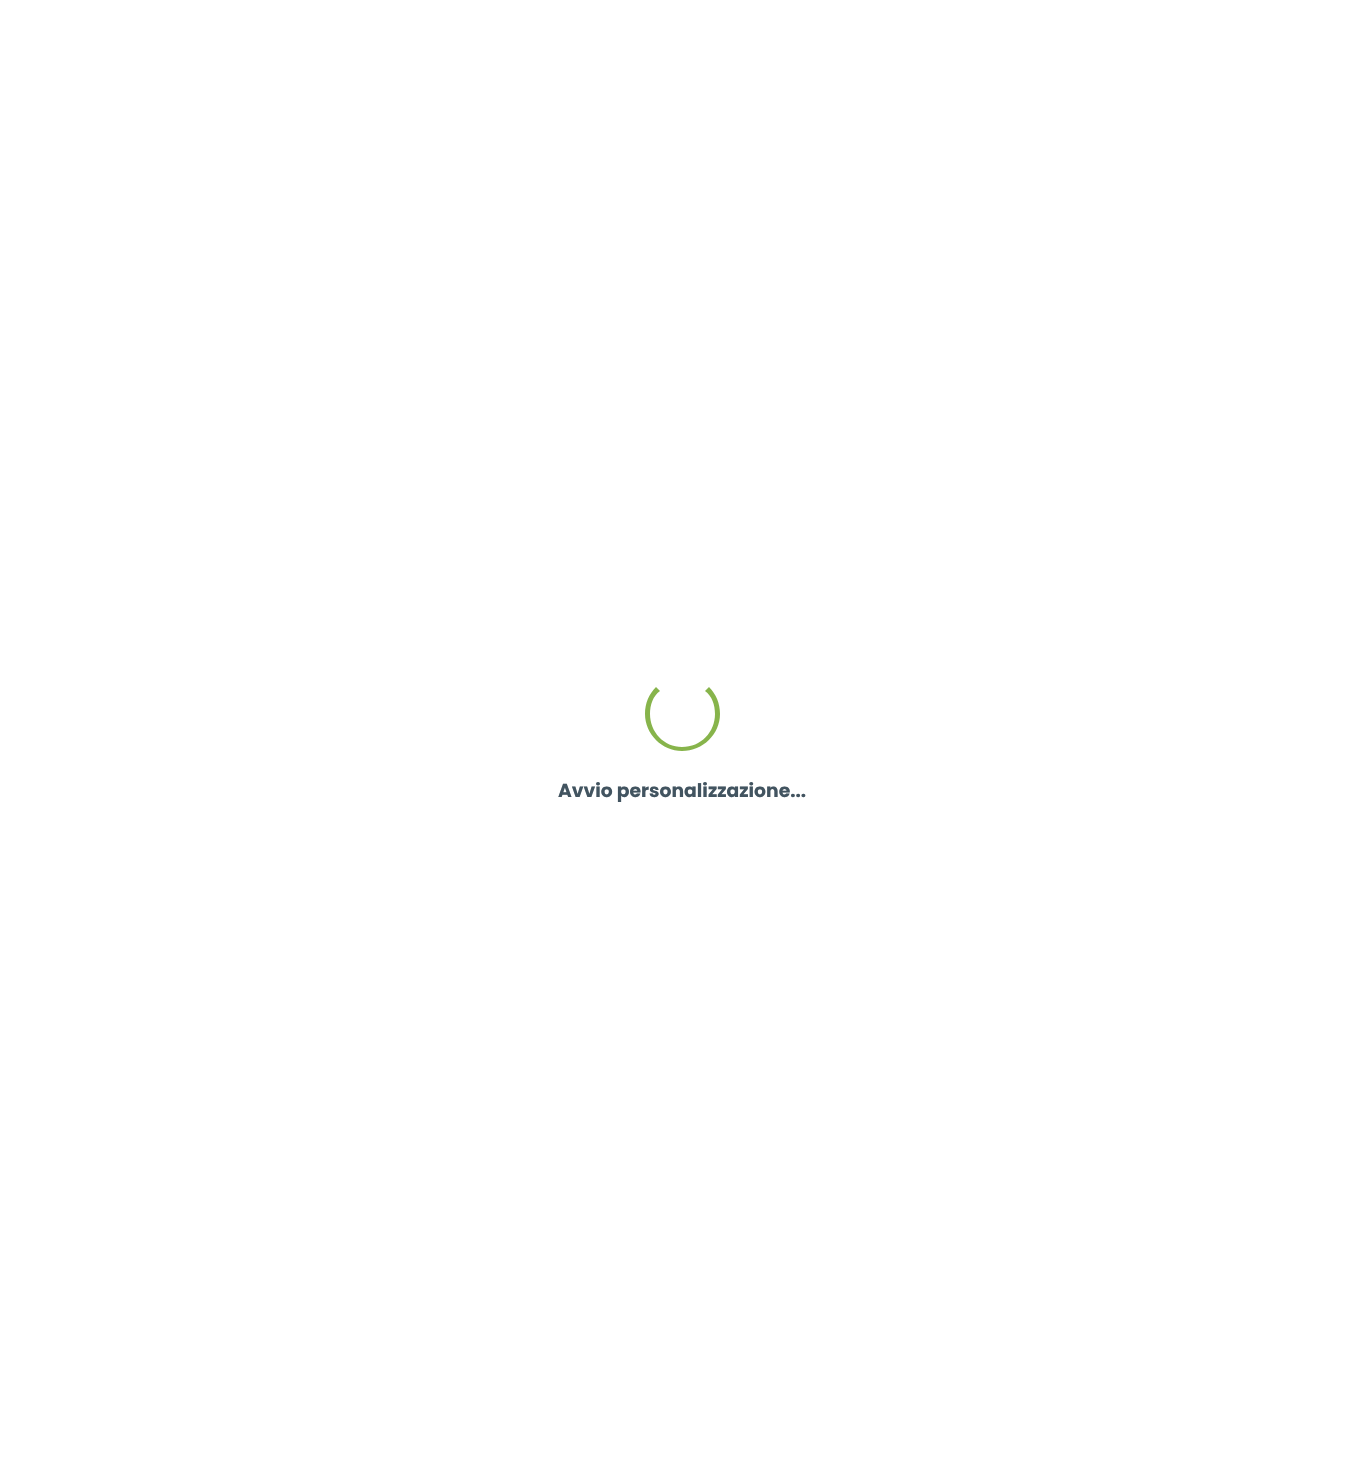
static SkFont makeFont(const char* family, int weight, float size, bool italic = false) {
  SkFontStyle style(weight, SkFontStyle::kNormal_Width,
    italic ? SkFontStyle::kItalic_Slant : SkFontStyle::kUpright_Slant);
  SkFont result(fontMgr->matchFamilyStyle(family, style), size);
  result.setSubpixel(true);
  return result;
}

static void text(SkCanvas* c, const char* s, float x, float y, const SkFont& font, SkColor color) {
  SkPaint ink(SkColor4f::FromColor(color));
  ink.setAntiAlias(true);
  c->drawString(s, x, y, font, ink);
}

void draw(SkCanvas* c) {
  SkPaint paint;
  paint.setAntiAlias(true);
  c->clear(0xffffffff);
  paint.setColor(0xff87b44b);
  c->drawPath(SkPathBuilder().moveTo(705, 691).cubicTo(712, 696, 715, 705, 715, 714).cubicTo(715, 732, 701, 747, 682, 747).cubicTo(664, 747, 650, 732, 650, 714).cubicTo(650, 705, 653, 696, 660, 691).lineTo(656, 687).cubicTo(649, 694, 645, 703, 645, 714).cubicTo(645, 734, 662, 751, 682, 751).cubicTo(703, 751, 720, 734, 720, 714).cubicTo(720, 703, 716, 694, 709, 687).close().detach(), paint);
  SkFont face1 = makeFont("Poppins", 700, 18.75f);
  text(c, "Avvio personalizzazione...", 558, 797, face1, 0xff425460);
}
